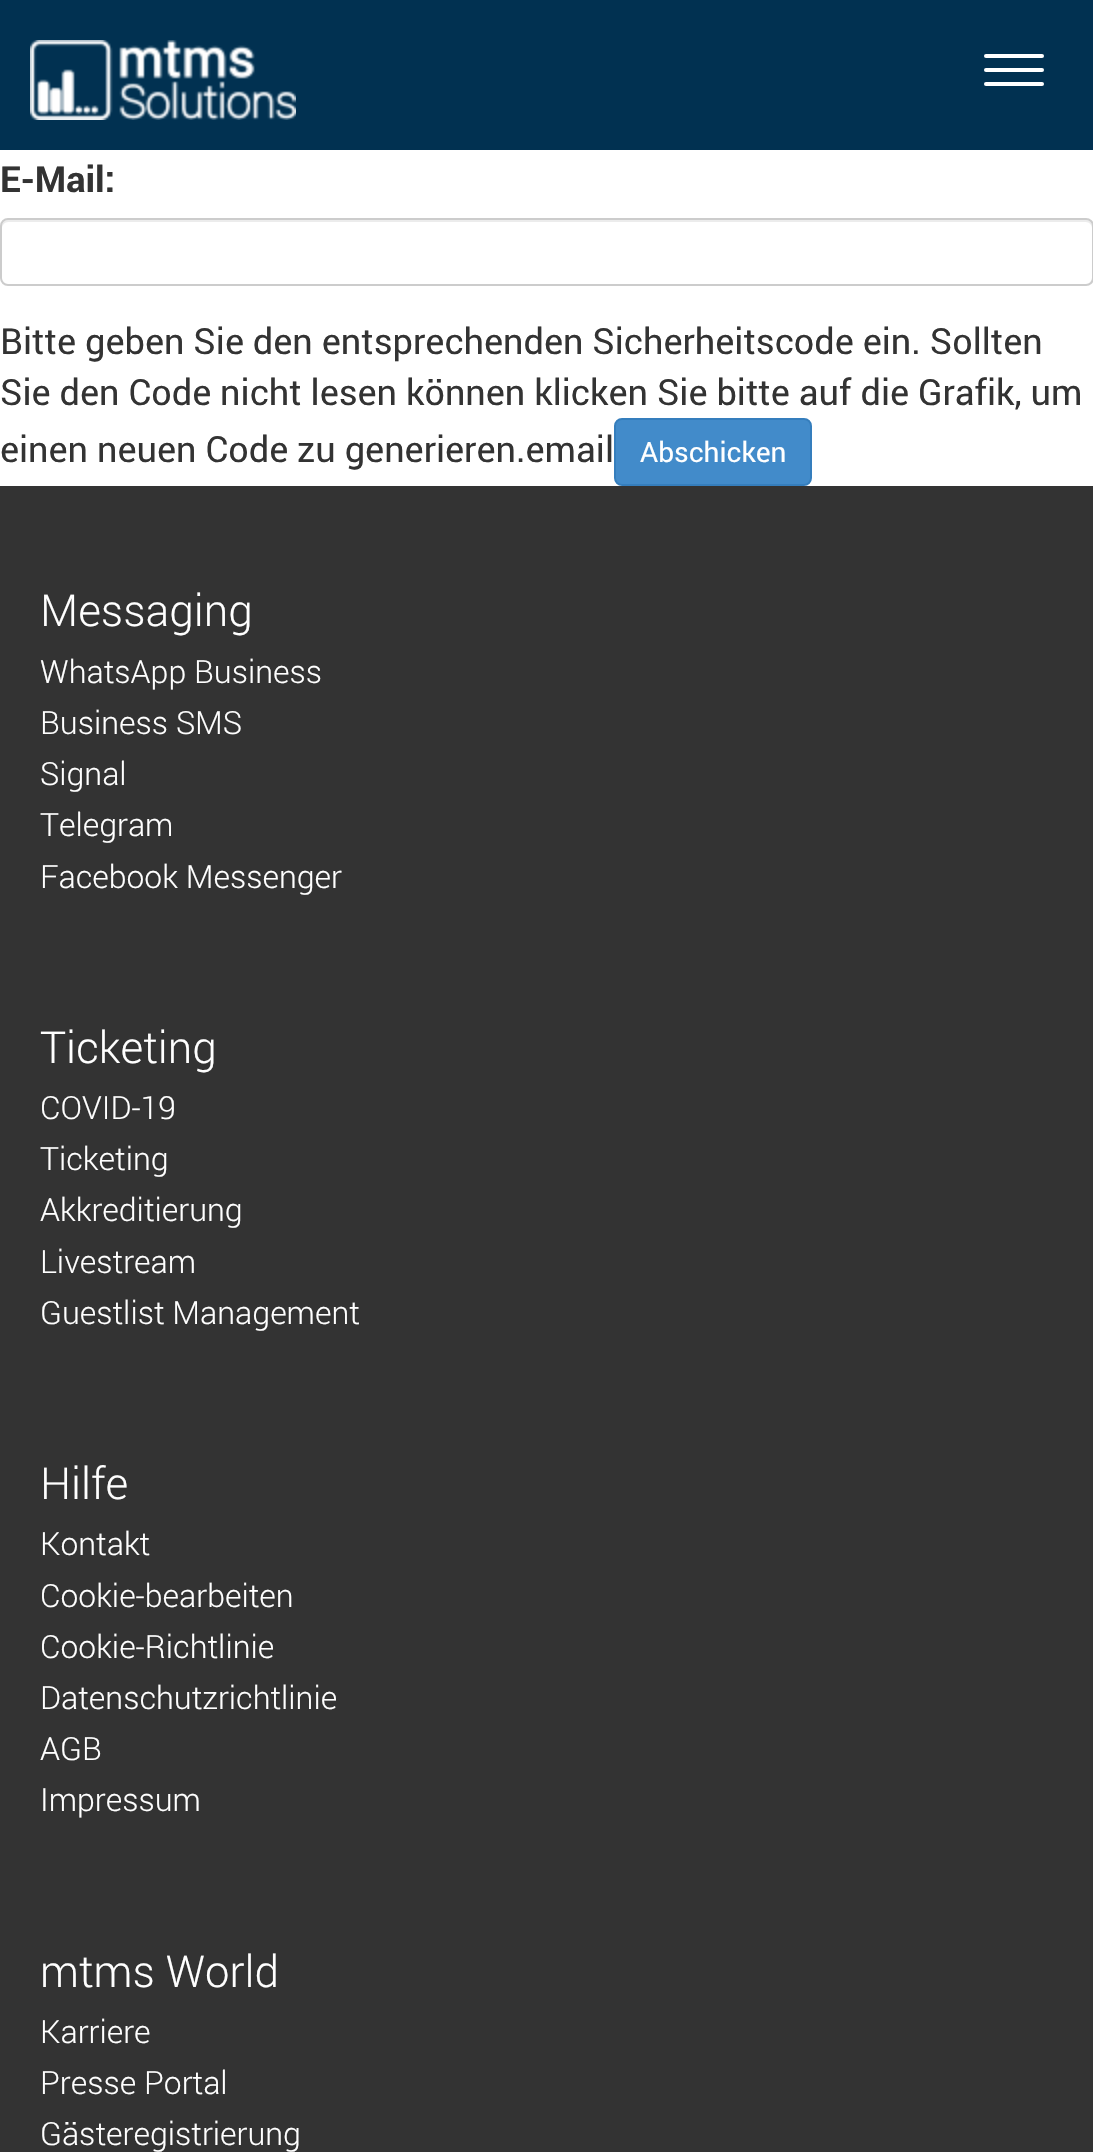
static SkFont makeFont(const char* family, int weight, float size, bool italic = false) {
  SkFontStyle style(weight, SkFontStyle::kNormal_Width,
    italic ? SkFontStyle::kItalic_Slant : SkFontStyle::kUpright_Slant);
  SkFont result(fontMgr->matchFamilyStyle(family, style), size);
  result.setSubpixel(true);
  return result;
}

static void text(SkCanvas* c, const char* s, float x, float y, const SkFont& font, SkColor color) {
  SkPaint ink(SkColor4f::FromColor(color));
  ink.setAntiAlias(true);
  c->drawString(s, x, y, font, ink);
}

static void box(SkCanvas* c, float l, float t, float r, float b, SkColor color) {
  SkPaint ink(SkColor4f::FromColor(color));
  ink.setAntiAlias(true);
  c->drawRect(SkRect::MakeLTRB(l, t, r, b), ink);
}

static void roundBox(SkCanvas* c, float l, float t, float r, float b, float radius, SkColor color) {
  SkPaint ink(SkColor4f::FromColor(color));
  ink.setAntiAlias(true);
  c->drawRoundRect(SkRect::MakeLTRB(l, t, r, b), radius, radius, ink);
}

static void picture(SkCanvas* c, const char* path, float l, float t, float r, float b) {
  auto image = SkImages::DeferredFromEncodedData(SkData::MakeFromFileName(path));
  c->drawImageRect(image, SkRect::MakeLTRB(l, t, r, b), SkSamplingOptions());
}

void draw(SkCanvas* c) {
  SkPaint paint;
  paint.setAntiAlias(true);
  c->clear(0xffffffff);
  box(c, 0, 0, 1093, 150, 0xff013151);
  picture(c, "img_01.png", 30, 40, 296, 120);
  roundBox(c, 984, 54, 1044, 58, 2, 0xffffffff);
  roundBox(c, 984, 68, 1044, 72, 2, 0xffffffff);
  roundBox(c, 984, 82, 1044, 86, 2, 0xffffffff);
  SkFont face1 = makeFont("Roboto", 700, 36);
  text(c, "E-Mail:", 0, 192, face1, 0xff333333);
  paint.setColor(0xffececec);
  c->drawPath(SkPathBuilder().moveTo(8, 222).lineTo(1086, 222).cubicTo(1089, 222, 1092, 225, 1092, 228).lineTo(1092, 226).cubicTo(1092, 223, 1089, 220, 1086, 220).lineTo(8, 220).cubicTo(5, 220, 2, 223, 2, 226).lineTo(2, 228).cubicTo(2, 225, 5, 222, 8, 222).close().detach(), paint);
  paint.setStyle(SkPaint::kStroke_Style);
  paint.setStrokeWidth(2);
  paint.setColor(0xffcccccc);
  c->drawRoundRect(SkRect::MakeLTRB(1, 219, 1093, 285), 7, 7, paint);
  SkFont face2 = makeFont("Roboto", 400, 36);
  text(c, "Bitte geben Sie den entsprechenden Sicherheitscode ein. Sollten", 0, 354, face2, 0xff333333);
  text(c, "Sie den Code nicht lesen können klicken Sie bitte auf die Grafik, um", 0, 405, face2, 0xff333333);
  text(c, "einen neuen Code zu generieren.email", 0, 462, face2, 0xff333333);
  paint.setStyle(SkPaint::kFill_Style);
  paint.setColor(0xff428bca);
  c->drawRoundRect(SkRect::MakeLTRB(615, 419, 811, 485), 7, 7, paint);
  paint.setStyle(SkPaint::kStroke_Style);
  paint.setColor(0xff357ebd);
  c->drawRoundRect(SkRect::MakeLTRB(615, 419, 811, 485), 7, 7, paint);
  SkFont face3 = makeFont("Roboto", 400, 28);
  text(c, "Abschicken", 640, 462, face3, 0xffffffff);
  box(c, 0, 486, 1093, 2152, 0xff333333);
  SkFont face4 = makeFont("Roboto", 300, 44);
  text(c, "Messaging", 40, 626, face4, 0xffffffff);
  SkFont face5 = makeFont("Roboto", 300, 32);
  text(c, "WhatsApp Business", 40, 683, face5, 0xffffffff);
  text(c, "Business SMS", 40, 734, face5, 0xffffffff);
  text(c, "Signal", 40, 785, face5, 0xffffffff);
  text(c, "Telegram", 40, 836, face5, 0xffffffff);
  text(c, "Facebook Messenger", 40, 888, face5, 0xffffffff);
  text(c, "Ticketing", 40, 1063, face4, 0xffffffff);
  text(c, "COVID-19", 40, 1119, face5, 0xffffffff);
  text(c, "Ticketing", 40, 1170, face5, 0xffffffff);
  text(c, "Akkreditierung", 40, 1221, face5, 0xffffffff);
  text(c, "Livestream", 40, 1273, face5, 0xffffffff);
  text(c, "Guestlist Management", 40, 1324, face5, 0xffffffff);
  text(c, "Hilfe", 40, 1499, face4, 0xffffffff);
  text(c, "Kontakt", 40, 1555, face5, 0xffffffff);
  text(c, "Cookie-bearbeiten", 40, 1607, face5, 0xffffffff);
  text(c, "Cookie-Richtlinie", 40, 1658, face5, 0xffffffff);
  text(c, "Datenschutzrichtlinie", 40, 1709, face5, 0xffffffff);
  text(c, "AGB", 40, 1760, face5, 0xffffffff);
  text(c, "Impressum", 40, 1811, face5, 0xffffffff);
  text(c, "mtms World", 40, 1987, face4, 0xffffffff);
  text(c, "Karriere", 40, 2043, face5, 0xffffffff);
  text(c, "Presse Portal", 40, 2094, face5, 0xffffffff);
  text(c, "Gästeregistrierung", 40, 2145, face5, 0xffffffff);
}
